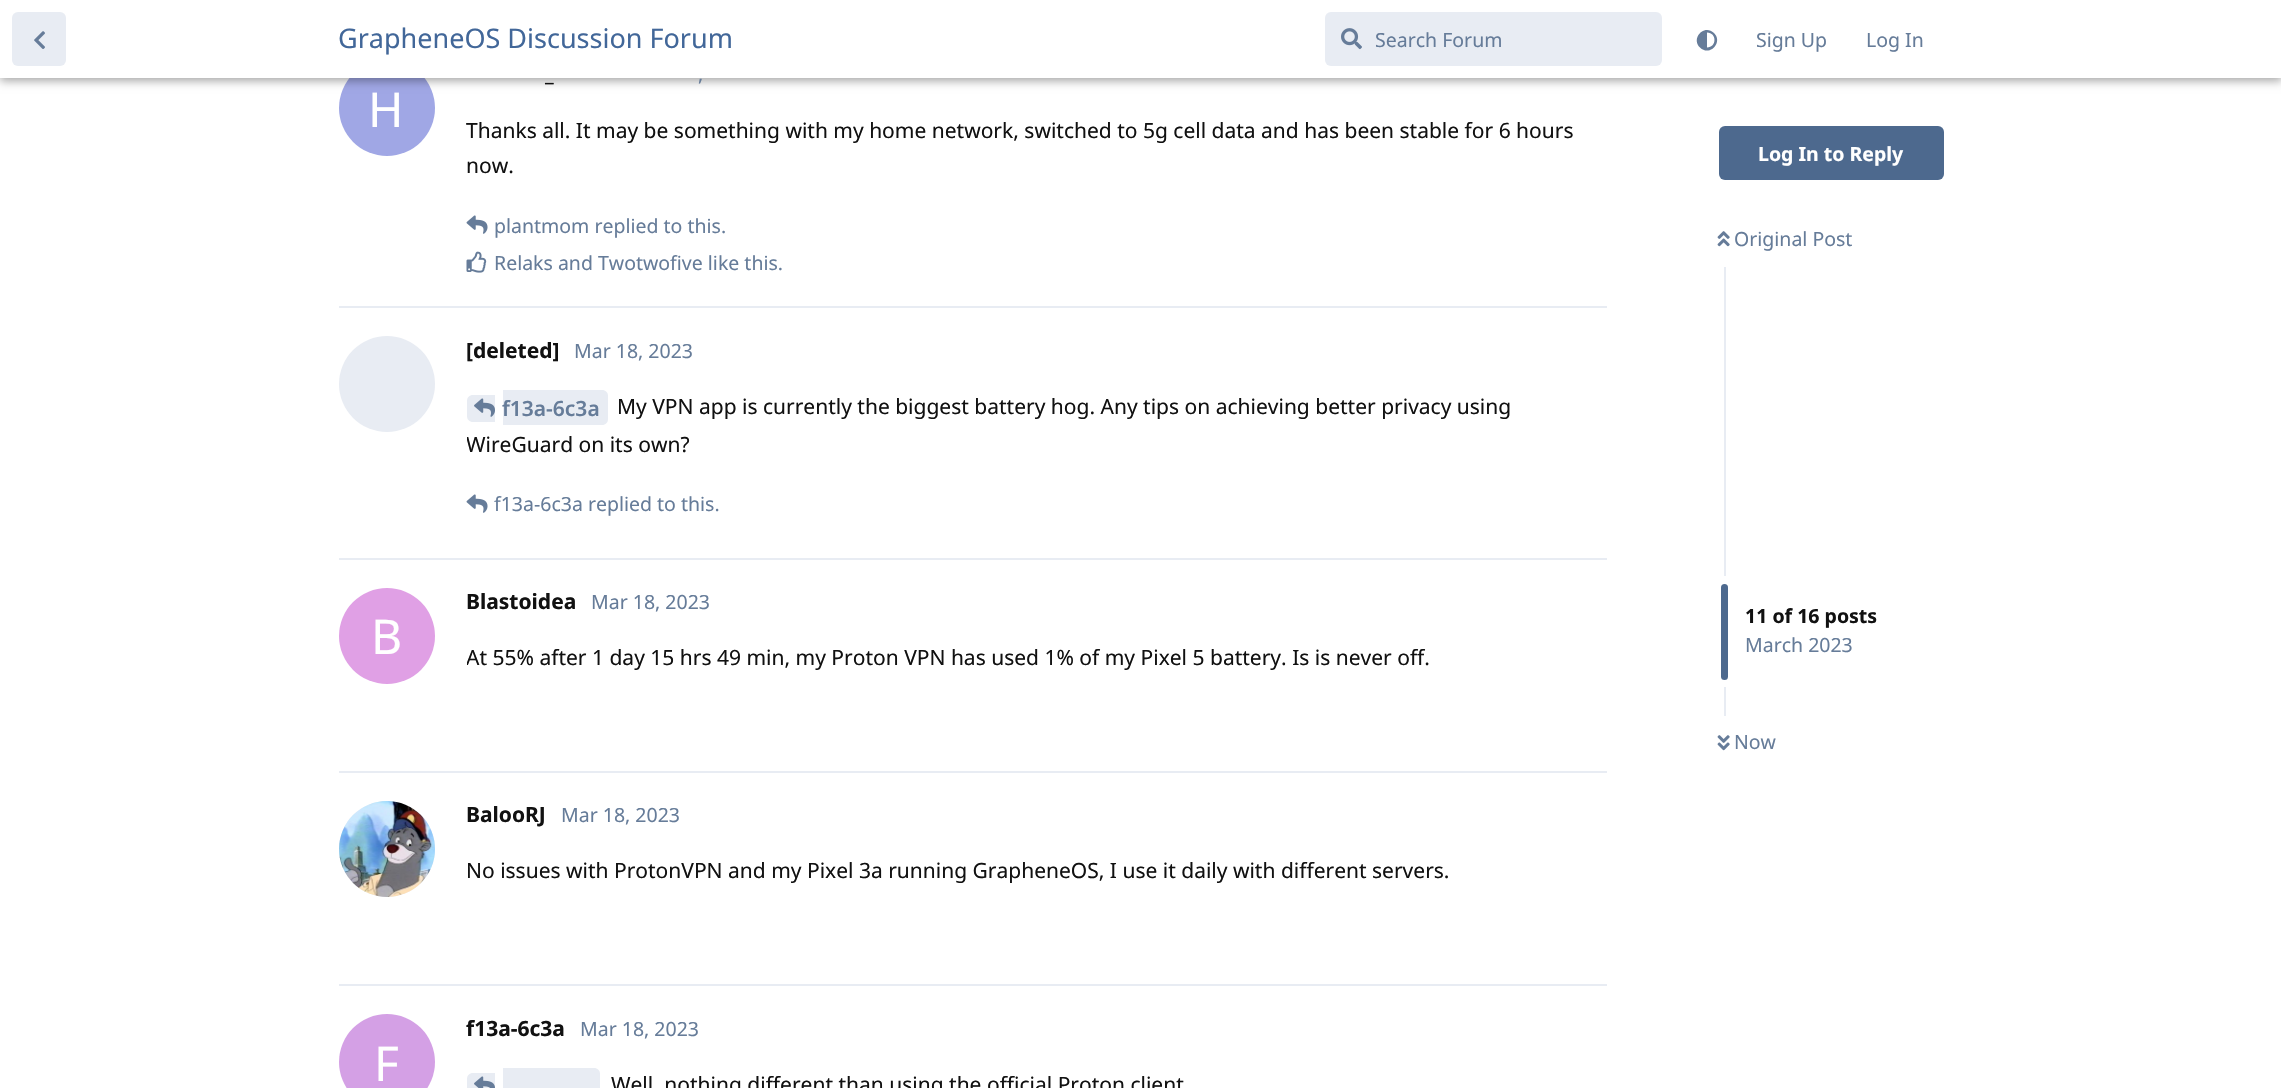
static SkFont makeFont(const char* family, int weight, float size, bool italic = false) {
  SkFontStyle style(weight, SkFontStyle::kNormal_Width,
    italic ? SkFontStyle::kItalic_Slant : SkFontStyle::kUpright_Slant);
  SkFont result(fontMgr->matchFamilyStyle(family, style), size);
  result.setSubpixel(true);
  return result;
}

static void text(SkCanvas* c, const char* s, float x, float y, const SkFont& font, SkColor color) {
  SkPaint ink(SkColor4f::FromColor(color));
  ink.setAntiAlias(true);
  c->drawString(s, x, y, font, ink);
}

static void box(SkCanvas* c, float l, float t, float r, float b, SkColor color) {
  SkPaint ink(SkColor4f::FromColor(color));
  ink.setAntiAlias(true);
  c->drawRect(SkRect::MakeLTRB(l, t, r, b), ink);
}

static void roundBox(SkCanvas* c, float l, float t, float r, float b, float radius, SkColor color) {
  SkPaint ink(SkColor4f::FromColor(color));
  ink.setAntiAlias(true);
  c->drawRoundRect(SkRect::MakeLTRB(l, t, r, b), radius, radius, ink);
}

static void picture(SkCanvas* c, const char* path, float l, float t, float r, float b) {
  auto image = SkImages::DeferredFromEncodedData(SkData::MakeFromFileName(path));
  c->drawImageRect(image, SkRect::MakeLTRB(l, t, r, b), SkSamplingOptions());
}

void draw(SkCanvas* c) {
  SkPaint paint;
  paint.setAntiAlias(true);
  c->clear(0xffffffff);
  paint.setColor(0xffa0a7e5);
  c->drawCircle(387, 108, 48, paint);
  paint.setColor(0x59000000);
  paint.setMaskFilter(SkMaskFilter::MakeBlur(kNormal_SkBlurStyle, 4.5f));
  c->drawRect(SkRect::MakeLTRB(0, 3, 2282, 81), paint);
  paint.setMaskFilter(nullptr);
  box(c, 0, 0, 2281, 78, 0xffffffff);
  roundBox(c, 12, 12, 66, 66, 6, 0xffe8ecf3);
  picture(c, "img_01.png", 34, 31, 45, 49);
  SkFont face1 = makeFont("Noto Sans", 400, 27);
  text(c, "GrapheneOS Discussion Forum", 338, 48, face1, 0xff426799);
  roundBox(c, 1325, 12, 1662, 66, 6, 0xffe8ecf3);
  picture(c, "img_02.png", 1341, 28, 1362, 50);
  SkFont face2 = makeFont("Noto Sans", 400, 19.5f);
  text(c, "Search Forum", 1375, 47, face2, 0xff667c99);
  paint.setColor(0xff667c99);
  c->drawPath(SkPathBuilder().moveTo(1700, 47.5f).cubicTo(1690.5f, 38, 1704.5f, 23.5f, 1714, 33).cubicTo(1723.5f, 42.5f, 1709.5f, 57, 1700, 47.5f).close().moveTo(1707, 47.5f).cubicTo(1717, 47.5f, 1717, 32.5f, 1707, 32.5f).close().detach(), paint);
  text(c, "Sign Up", 1756, 47, face2, 0xff667c99);
  text(c, "Log In", 1866, 47, face2, 0xff667c99);
  box(c, 339, 306, 1607, 308, 0xffe8ecf3);
  text(c, ",", 698, 81, face2, 0xff667c99);
  SkFont face3 = makeFont("Noto Sans", 700, 21);
  text(c, "_", 545, 81, face3, 0xff111111);
  SkFont face4 = makeFont("Noto Sans", 400, 48);
  text(c, "H", 368, 127, face4, 0xffffffff);
  SkFont face5 = makeFont("Noto Sans", 400, 21);
  text(c, "Thanks all. It may be something with my home network, switched to 5g cell data and has been stable for 6 hours", 466, 138, face5, 0xff111111);
  text(c, "now.", 466, 173, face5, 0xff111111);
  picture(c, "img_03.png", 466, 215, 488, 234);
  text(c, "plantmom replied to this.", 494, 233, face2, 0xff667c99);
  picture(c, "img_04.png", 466, 251, 487, 273);
  text(c, "Relaks and Twotwofive like this.", 494, 270, face2, 0xff667c99);
  box(c, 339, 558, 1607, 560, 0xffe8ecf3);
  paint.setColor(0xffe8ecf3);
  c->drawCircle(387, 384, 48, paint);
  text(c, "[deleted]", 466, 358, face3, 0xff111111);
  text(c, "Mar 18, 2023", 574, 358, face2, 0xff667c99);
  c->drawPath(SkPathBuilder().moveTo(473, 395).lineTo(495, 395).lineTo(495, 422).lineTo(473, 422).cubicTo(469.5f, 422, 467, 419.5f, 467, 416).lineTo(467, 401).cubicTo(467, 397.5f, 469.5f, 395, 473, 395).close().detach(), paint);
  c->drawPath(SkPathBuilder().moveTo(503, 390).lineTo(602, 390).cubicTo(605.5f, 390, 608, 392.5f, 608, 396).lineTo(608, 419).cubicTo(608, 422.5f, 605.5f, 425, 602, 425).lineTo(503, 425).close().detach(), paint);
  picture(c, "img_05.png", 474, 398, 495, 417);
  SkFont face6 = makeFont("Noto Sans", 600, 21);
  text(c, "f13a-6c3a", 502, 416, face6, 0xff667c99);
  text(c, "My VPN app is currently the biggest battery hog. Any tips on achieving better privacy using", 617, 414, face5, 0xff111111);
  c->save();
  c->clipRect(SkRect::MakeLTRB(467, 389, 1607, 483));
  text(c, "WireGuard on its own?", 466, 452, face5, 0xff111111);
  c->restore();
  picture(c, "img_03.png", 466, 494, 488, 513);
  text(c, "f13a-6c3a replied to this.", 494, 511, face2, 0xff667c99);
  box(c, 339, 771, 1607, 773, 0xffe8ecf3);
  text(c, "Blastoidea", 466, 609, face3, 0xff111111);
  paint.setColor(0xffe0a0e5);
  c->drawCircle(387, 636, 48, paint);
  text(c, "B", 371, 654, face4, 0xffffffff);
  text(c, "Mar 18, 2023", 591, 609, face2, 0xff667c99);
  c->save();
  c->clipRect(SkRect::MakeLTRB(467, 639, 1607, 696));
  text(c, "At 55% after 1 day 15 hrs 49 min, my Proton VPN has used 1% of my Pixel 5 battery. Is is never off.", 466, 665, face5, 0xff111111);
  c->restore();
  box(c, 339, 984, 1607, 986, 0xffe8ecf3);
  paint.setColor(0xffe8ecf3);
  c->drawCircle(387, 849, 48, paint);
  picture(c, "img_06.png", 339, 801, 435, 897);
  text(c, "BalooRJ", 466, 822, face3, 0xff111111);
  text(c, "Mar 18, 2023", 561, 822, face2, 0xff667c99);
  text(c, "No issues with ProtonVPN and my Pixel 3a running GrapheneOS, I use it daily with different servers.", 466, 878, face5, 0xff111111);
  text(c, "f13a-6c3a", 466, 1036, face3, 0xff111111);
  paint.setColor(0xffd4a0e5);
  c->drawCircle(387, 1062, 48, paint);
  text(c, "F", 374, 1081, face4, 0xffffffff);
  text(c, "Mar 18, 2023", 580, 1036, face2, 0xff667c99);
  paint.setColor(0xffe8ecf3);
  c->drawPath(SkPathBuilder().moveTo(473, 1073).lineTo(495, 1073).lineTo(495, 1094).lineTo(473, 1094).cubicTo(469.5f, 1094, 467, 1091.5f, 467, 1088).lineTo(467, 1079).cubicTo(467, 1075.5f, 469.5f, 1073, 473, 1073).close().detach(), paint);
  c->drawPath(SkPathBuilder().moveTo(503, 1068).lineTo(594, 1068).cubicTo(597.5f, 1068, 600, 1070.5f, 600, 1074).lineTo(600, 1088).cubicTo(600, 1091.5f, 597.5f, 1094, 594, 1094).lineTo(503, 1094).close().detach(), paint);
  picture(c, "img_07.png", 474, 1076, 495, 1088);
  text(c, "Well, nothing different than using the official Proton client", 611, 1092, face5, 0xff111111);
  roundBox(c, 1719, 126, 1944, 180, 6, 0xff4d698e);
  SkFont face7 = makeFont("Noto Sans", 700, 19.5f);
  text(c, "Log In to Reply", 1758, 161, face7, 0xffffffff);
  picture(c, "img_08.png", 1717, 231, 1730, 247);
  text(c, "Original Post", 1734, 246, face2, 0xff667c99);
  box(c, 1724, 267, 1726, 576, 0xffe8ecf3);
  roundBox(c, 1721, 584, 1728, 680, 3.5f, 0xff4d698e);
  text(c, "11 of 16 posts", 1745, 623, face7, 0xff111111);
  text(c, "March 2023", 1745, 652, face2, 0xff667c99);
  box(c, 1724, 687, 1726, 716, 0xffe8ecf3);
  picture(c, "img_09.png", 1717, 735, 1730, 751);
  text(c, "Now", 1734, 749, face2, 0xff667c99);
}
